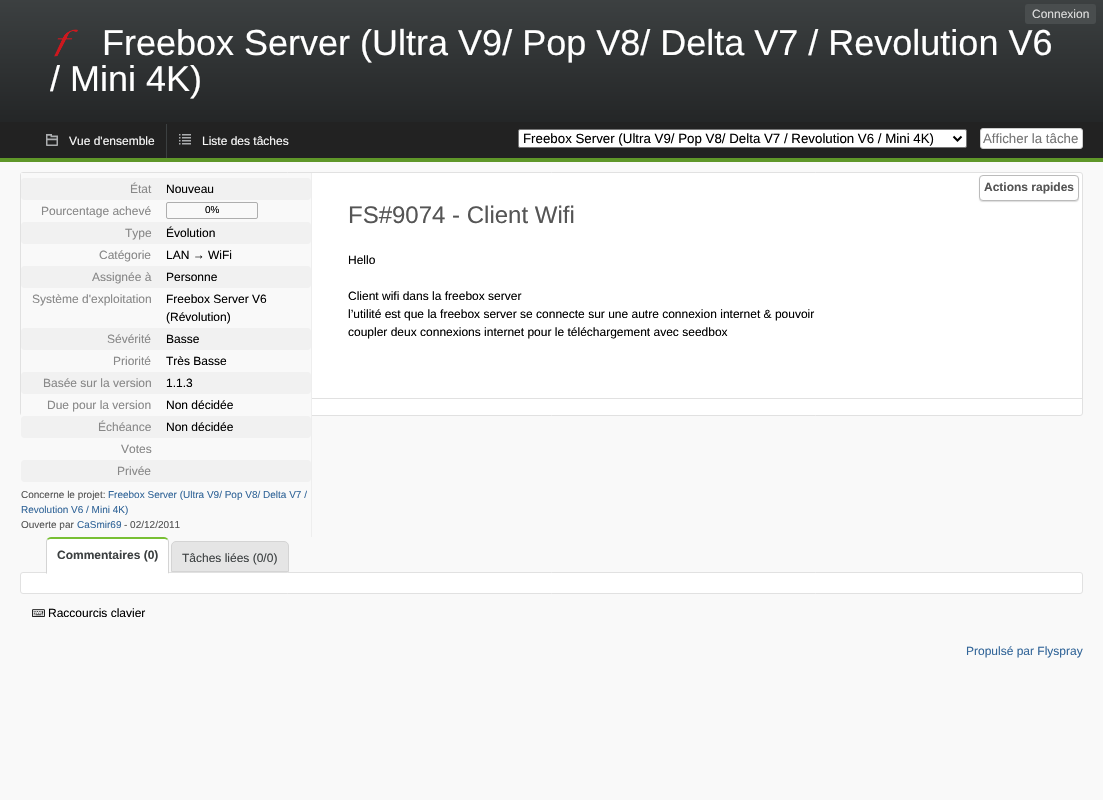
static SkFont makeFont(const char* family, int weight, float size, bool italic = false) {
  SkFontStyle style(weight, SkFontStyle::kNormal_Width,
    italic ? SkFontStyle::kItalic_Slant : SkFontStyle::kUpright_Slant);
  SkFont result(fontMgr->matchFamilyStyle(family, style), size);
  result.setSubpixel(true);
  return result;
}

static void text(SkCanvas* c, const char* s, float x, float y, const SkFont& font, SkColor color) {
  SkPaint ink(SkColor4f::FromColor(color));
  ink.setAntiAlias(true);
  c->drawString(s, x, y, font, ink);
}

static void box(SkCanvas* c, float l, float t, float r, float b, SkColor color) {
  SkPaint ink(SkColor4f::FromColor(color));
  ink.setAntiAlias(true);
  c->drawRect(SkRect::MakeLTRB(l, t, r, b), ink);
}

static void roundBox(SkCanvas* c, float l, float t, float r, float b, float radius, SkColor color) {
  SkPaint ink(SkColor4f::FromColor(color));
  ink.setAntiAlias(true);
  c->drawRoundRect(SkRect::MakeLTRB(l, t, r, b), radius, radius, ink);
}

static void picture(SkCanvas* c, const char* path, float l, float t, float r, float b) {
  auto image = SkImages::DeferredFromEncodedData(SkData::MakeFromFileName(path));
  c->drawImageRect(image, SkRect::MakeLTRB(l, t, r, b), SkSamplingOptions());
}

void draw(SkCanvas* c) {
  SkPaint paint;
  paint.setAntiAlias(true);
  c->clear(0xfff9f9f9);
  {
    const SkColor colors[] = {0xff3c4041, 0xff242627};
    const float stops[] = {0, 1};
    const SkPoint ends[] = {{552, 0}, {552, 122}};
    paint.setShader(SkGradientShader::MakeLinear(ends, colors, stops, 2, SkTileMode::kClamp));
    paint.setAlpha(255);
  }
  c->drawRect(SkRect::MakeLTRB(0, 0, 1103, 122), paint);
  roundBox(c, 1025, 4, 1096, 24, 3, 0xff494d4e);
  SkFont face1 = makeFont("Liberation Sans", 400, 12);
  text(c, "Connexion", 1032, 18, face1, 0xffdddddd);
  picture(c, "img_01.png", 54, 29, 78, 57);
  SkFont face2 = makeFont("Liberation Sans", 400, 36);
  text(c, "Freebox Server (Ultra V9/ Pop V8/ Delta V7 / Revolution V6", 102, 55, face2, 0xffffffff);
  text(c, "/ Mini 4K)", 50, 91, face2, 0xffffffff);
  box(c, 0, 122, 1103, 158, 0xff222222);
  box(c, 0, 158, 1103, 162, 0xff5f9729);
  picture(c, "img_02.png", 46, 134, 58, 146);
  text(c, "Vue d'ensemble", 69, 145, face1, 0xfff9f9f9);
  picture(c, "img_03.png", 179, 134, 191, 145);
  box(c, 166, 124, 167, 158, 0xff3c4041);
  text(c, "Liste des tâches", 202, 145, face1, 0xfff9f9f9);
  paint.setShader(nullptr);
  paint.setColor(0xffffffff);
  c->drawRoundRect(SkRect::MakeLTRB(518.5f, 129.5f, 966.5f, 147.5f), 1.5f, 1.5f, paint);
  paint.setStyle(SkPaint::kStroke_Style);
  paint.setStrokeWidth(1);
  paint.setColor(0xff767676);
  c->drawRoundRect(SkRect::MakeLTRB(518.5f, 129.5f, 966.5f, 147.5f), 1.5f, 1.5f, paint);
  paint.setStrokeWidth(2);
  paint.setColor(0xff000000);
  c->drawPath(SkPathBuilder().moveTo(953.5f, 136.5f).lineTo(957.5f, 140.5f).lineTo(961.5f, 136.5f).detach(), paint);
  SkFont face3 = makeFont("Liberation Sans", 400, 13.3f);
  text(c, "Freebox Server (Ultra V9/ Pop V8/ Delta V7 / Revolution V6 / Mini 4K)", 523, 143, face3, 0xff000000);
  paint.setStyle(SkPaint::kFill_Style);
  paint.setColor(0xffffffff);
  c->drawRoundRect(SkRect::MakeLTRB(980.5f, 128.5f, 1082.5f, 148.5f), 2.5f, 2.5f, paint);
  paint.setStyle(SkPaint::kStroke_Style);
  paint.setStrokeWidth(1);
  paint.setColor(0xffcccccc);
  c->drawRoundRect(SkRect::MakeLTRB(980.5f, 128.5f, 1082.5f, 148.5f), 2.5f, 2.5f, paint);
  text(c, "Afficher la tâche", 983, 143, face3, 0xff757575);
  paint.setStyle(SkPaint::kFill_Style);
  paint.setColor(0xffffffff);
  c->drawRoundRect(SkRect::MakeLTRB(20.5f, 172.5f, 1082.5f, 415.5f), 2.5f, 2.5f, paint);
  paint.setStyle(SkPaint::kStroke_Style);
  paint.setColor(0xffe1e1e1);
  c->drawRoundRect(SkRect::MakeLTRB(20.5f, 172.5f, 1082.5f, 415.5f), 2.5f, 2.5f, paint);
  box(c, 21, 173, 311, 416, 0xfff9f9f9);
  box(c, 311, 173, 312, 537, 0xffeeeeee);
  roundBox(c, 21, 178, 311, 200, 4, 0xfff1f1f1);
  text(c, "État", 130, 193, face1, 0xff888888);
  text(c, "Nouveau", 166, 193, face1, 0xff000000);
  text(c, "Pourcentage achevé", 41, 215, face1, 0xff888888);
  paint.setColor(0xffaeaeae);
  c->drawRoundRect(SkRect::MakeLTRB(166.5f, 202.5f, 257.5f, 218.5f), 1.5f, 1.5f, paint);
  SkFont face4 = makeFont("Liberation Sans", 400, 10);
  text(c, "0%", 205, 213, face4, 0xff000000);
  roundBox(c, 21, 222, 311, 244, 4, 0xfff1f1f1);
  text(c, "Type", 125, 237, face1, 0xff888888);
  text(c, "Évolution", 166, 237, face1, 0xff000000);
  text(c, "Catégorie", 99, 259, face1, 0xff888888);
  text(c, "LAN → WiFi", 166, 259, face1, 0xff000000);
  roundBox(c, 21, 266, 311, 288, 4, 0xfff1f1f1);
  text(c, "Assignée à", 92, 281, face1, 0xff888888);
  text(c, "Personne", 166, 281, face1, 0xff000000);
  text(c, "Système d'exploitation", 32, 303, face1, 0xff888888);
  text(c, "Freebox Server V6", 166, 303, face1, 0xff000000);
  text(c, "(Révolution)", 166, 321, face1, 0xff000000);
  roundBox(c, 21, 328, 311, 350, 4, 0xfff1f1f1);
  text(c, "Sévérité", 107, 343, face1, 0xff888888);
  text(c, "Basse", 166, 343, face1, 0xff000000);
  text(c, "Priorité", 113, 365, face1, 0xff888888);
  text(c, "Très Basse", 166, 365, face1, 0xff000000);
  roundBox(c, 21, 372, 311, 394, 4, 0xfff1f1f1);
  text(c, "Basée sur la version", 43, 387, face1, 0xff888888);
  text(c, "1.1.3", 166, 387, face1, 0xff000000);
  text(c, "Due pour la version", 47, 409, face1, 0xff888888);
  text(c, "Non décidée", 166, 409, face1, 0xff000000);
  roundBox(c, 21, 416, 311, 438, 4, 0xfff1f1f1);
  text(c, "Échéance", 98, 431, face1, 0xff888888);
  text(c, "Non décidée", 166, 431, face1, 0xff000000);
  text(c, "Votes", 121, 453, face1, 0xff888888);
  roundBox(c, 21, 460, 311, 482, 4, 0xfff1f1f1);
  text(c, "Privée", 117, 475, face1, 0xff888888);
  text(c, "Concerne le projet:", 21, 498, face4, 0xff555555);
  text(c, "Freebox Server (Ultra V9/ Pop V8/ Delta V7 /", 108, 498, face4, 0xff336699);
  text(c, "Revolution V6 / Mini 4K)", 21, 513, face4, 0xff336699);
  text(c, "Ouverte par", 21, 528, face4, 0xff555555);
  text(c, "CaSmir69", 77, 528, face4, 0xff336699);
  text(c, "- 02/12/2011", 124, 528, face4, 0xff555555);
  SkFont face5 = makeFont("Liberation Sans", 400, 24);
  text(c, "FS#9074 - Client Wifi", 348, 223, face5, 0xff555555);
  text(c, "Hello", 348, 264, face1, 0xff000000);
  text(c, "Client wifi dans la freebox server", 348, 300, face1, 0xff000000);
  text(c, "l’utilité est que la freebox server se connecte sur une autre connexion internet & pouvoir", 348, 318, face1, 0xff000000);
  text(c, "coupler deux connexions internet pour le téléchargement avec seedbox", 348, 336, face1, 0xff000000);
  box(c, 312, 398, 1082, 399, 0xffe1e1e1);
  paint.setStyle(SkPaint::kFill_Style);
  paint.setColor(0xffdddddd);
  paint.setMaskFilter(SkMaskFilter::MakeBlur(kNormal_SkBlurStyle, 0.5f));
  c->drawRoundRect(SkRect::MakeLTRB(979, 176, 1079, 202), 4, 4, paint);
  paint.setMaskFilter(nullptr);
  paint.setColor(0xffffffff);
  c->drawRoundRect(SkRect::MakeLTRB(979.5f, 175.5f, 1078.5f, 200.5f), 3.5f, 3.5f, paint);
  paint.setStyle(SkPaint::kStroke_Style);
  paint.setColor(0xffbbbbbb);
  c->drawRoundRect(SkRect::MakeLTRB(979.5f, 175.5f, 1078.5f, 200.5f), 3.5f, 3.5f, paint);
  SkFont face6 = makeFont("Liberation Sans", 700, 12);
  text(c, "Actions rapides", 984, 191, face6, 0xff555555);
  paint.setStyle(SkPaint::kFill_Style);
  paint.setColor(0xffffffff);
  c->drawRoundRect(SkRect::MakeLTRB(20.5f, 572.5f, 1082.5f, 593.5f), 2.5f, 2.5f, paint);
  paint.setStyle(SkPaint::kStroke_Style);
  paint.setColor(0xffe1e1e1);
  c->drawRoundRect(SkRect::MakeLTRB(20.5f, 572.5f, 1082.5f, 593.5f), 2.5f, 2.5f, paint);
  paint.setStyle(SkPaint::kFill_Style);
  paint.setColor(0xffffffff);
  c->drawPath(SkPathBuilder().moveTo(51, 539).lineTo(164, 539).cubicTo(166, 539, 168, 540, 168, 542).lineTo(168, 573).lineTo(47, 573).lineTo(47, 542).cubicTo(47, 540, 49, 539, 51, 539).close().detach(), paint);
  paint.setColor(0xff78bf34);
  c->drawPath(SkPathBuilder().moveTo(51, 537).cubicTo(49, 537, 48, 538, 47, 539).lineTo(48, 540).cubicTo(48, 539, 50, 539, 51, 539).lineTo(164, 539).cubicTo(165, 539, 167, 539, 167, 540).lineTo(168, 539).cubicTo(167, 538, 166, 537, 164, 537).close().detach(), paint);
  paint.setColor(0xffd4d4d4);
  c->drawPath(SkPathBuilder().moveTo(169, 574).lineTo(169, 542).cubicTo(169, 541, 168.5f, 539.5f, 168, 539).lineTo(167.5f, 540.5f).cubicTo(168, 540.5f, 168, 541.5f, 168, 542).lineTo(168, 573).close().detach(), paint);
  paint.setColor(0xffffffff);
  c->drawPath(SkPathBuilder().moveTo(169, 574).lineTo(168, 573).lineTo(47, 573).lineTo(46, 574).close().detach(), paint);
  paint.setColor(0xffd4d4d4);
  c->drawPath(SkPathBuilder().moveTo(46, 574).lineTo(47, 573).lineTo(47, 542).cubicTo(47, 541.5f, 47, 540.5f, 47.5f, 540.5f).lineTo(47, 539).cubicTo(46.5f, 539.5f, 46, 541, 46, 542).close().detach(), paint);
  text(c, "Commentaires (0)", 57, 559, face6, 0xff3c4041);
  paint.setColor(0xffe5e5e5);
  c->drawPath(SkPathBuilder().moveTo(176, 541.5f).lineTo(284, 541.5f).cubicTo(286.5f, 541.5f, 288.5f, 543.5f, 288.5f, 546).lineTo(288.5f, 571.5f).lineTo(171.5f, 571.5f).lineTo(171.5f, 546).cubicTo(171.5f, 543.5f, 173.5f, 541.5f, 176, 541.5f).close().detach(), paint);
  paint.setStyle(SkPaint::kStroke_Style);
  paint.setColor(0xffd4d4d4);
  c->drawPath(SkPathBuilder().moveTo(176, 541.5f).lineTo(284, 541.5f).cubicTo(286.5f, 541.5f, 288.5f, 543.5f, 288.5f, 546).lineTo(288.5f, 571.5f).lineTo(171.5f, 571.5f).lineTo(171.5f, 546).cubicTo(171.5f, 543.5f, 173.5f, 541.5f, 176, 541.5f).close().detach(), paint);
  text(c, "Tâches liées (0/0)", 182, 562, face1, 0xff3c4041);
  picture(c, "img_04.png", 32, 609, 45, 617);
  text(c, "Raccourcis clavier", 48, 617, face1, 0xff000000);
  text(c, "Propulsé par Flyspray", 966, 655, face1, 0xff336699);
}
